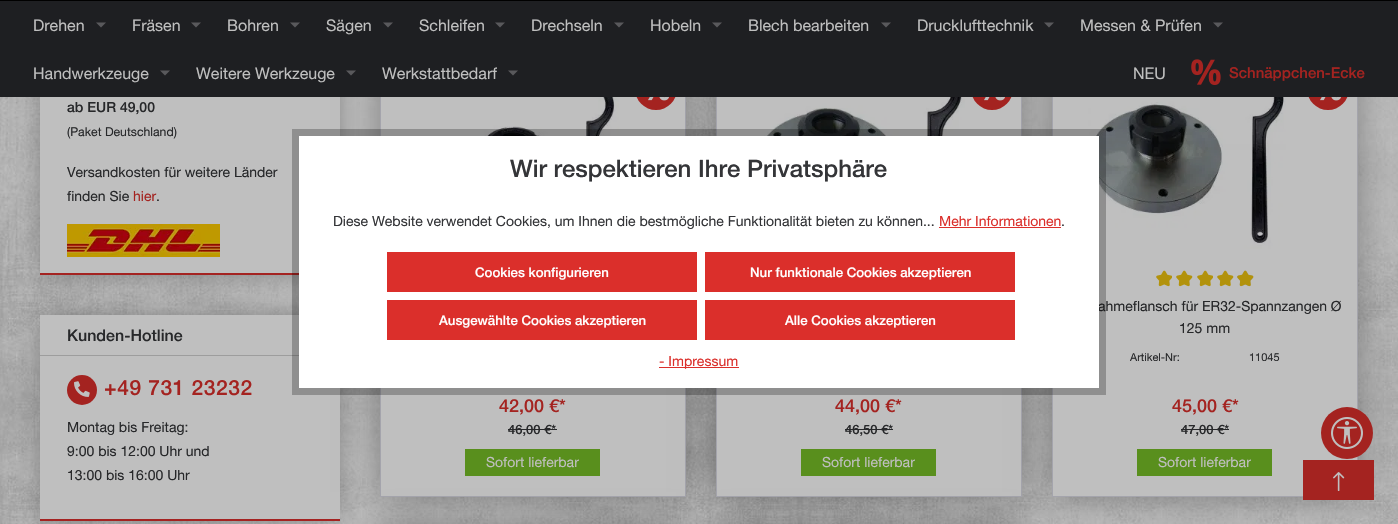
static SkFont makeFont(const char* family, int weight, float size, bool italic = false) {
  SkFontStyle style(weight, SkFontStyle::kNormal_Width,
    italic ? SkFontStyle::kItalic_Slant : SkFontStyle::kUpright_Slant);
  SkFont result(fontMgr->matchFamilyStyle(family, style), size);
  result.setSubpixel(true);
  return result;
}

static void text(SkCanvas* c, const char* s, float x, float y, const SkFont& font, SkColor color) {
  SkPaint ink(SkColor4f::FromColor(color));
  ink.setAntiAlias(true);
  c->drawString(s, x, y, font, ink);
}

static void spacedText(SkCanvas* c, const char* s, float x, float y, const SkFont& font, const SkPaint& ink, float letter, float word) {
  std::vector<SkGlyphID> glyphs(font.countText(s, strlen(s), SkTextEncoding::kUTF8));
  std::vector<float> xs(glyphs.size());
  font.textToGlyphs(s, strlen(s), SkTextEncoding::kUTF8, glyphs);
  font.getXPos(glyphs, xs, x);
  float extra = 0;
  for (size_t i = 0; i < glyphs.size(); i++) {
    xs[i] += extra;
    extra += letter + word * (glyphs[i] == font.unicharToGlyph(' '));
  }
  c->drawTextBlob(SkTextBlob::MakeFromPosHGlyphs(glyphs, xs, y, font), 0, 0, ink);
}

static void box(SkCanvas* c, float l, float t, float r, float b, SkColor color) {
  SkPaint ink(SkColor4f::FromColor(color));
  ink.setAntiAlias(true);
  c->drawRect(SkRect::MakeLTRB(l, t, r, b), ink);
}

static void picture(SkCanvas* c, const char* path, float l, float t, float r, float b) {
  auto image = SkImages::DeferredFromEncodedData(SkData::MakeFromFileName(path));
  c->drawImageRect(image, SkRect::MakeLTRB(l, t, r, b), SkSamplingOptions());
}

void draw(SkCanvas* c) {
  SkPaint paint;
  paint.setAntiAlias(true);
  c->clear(0xffffffff);
  picture(c, "img_02.png", 0, 97, 1398, 524);
  paint.setColor(0xff737373);
  paint.setMaskFilter(SkMaskFilter::MakeBlur(kNormal_SkBlurStyle, 12.5f));
  c->drawRect(SkRect::MakeLTRB(45, 43, 335, 270), paint);
  paint.setMaskFilter(nullptr);
  box(c, 40, 97, 340, 273, 0xffbfbfbf);
  paint.setMaskFilter(SkMaskFilter::MakeBlur(kNormal_SkBlurStyle, 12.5f));
  c->drawRect(SkRect::MakeLTRB(45, 320, 335, 516), paint);
  paint.setMaskFilter(nullptr);
  box(c, 40, 315, 340, 519, 0xffbfbfbf);
  box(c, 40, 519, 340, 521, 0xffa42321);
  paint.setColor(0x66000000);
  paint.setMaskFilter(SkMaskFilter::MakeBlur(kNormal_SkBlurStyle, 18.5f));
  c->drawRect(SkRect::MakeLTRB(385, 64, 681, 492), paint);
  paint.setMaskFilter(nullptr);
  box(c, 381, 388, 685, 496, 0xffbfbfbf);
  paint.setStyle(SkPaint::kStroke_Style);
  paint.setStrokeWidth(1);
  paint.setColor(0xffa4a4ac);
  c->drawRect(SkRect::MakeLTRB(380.5f, 59.5f, 685.5f, 496.5f), paint);
  paint.setStyle(SkPaint::kFill_Style);
  paint.setColor(0x66000000);
  paint.setMaskFilter(SkMaskFilter::MakeBlur(kNormal_SkBlurStyle, 18.5f));
  c->drawRect(SkRect::MakeLTRB(721, 64, 1017, 492), paint);
  paint.setMaskFilter(nullptr);
  box(c, 381, 97, 685, 136, 0xffbfbfbf);
  paint.setColor(0xffa42320);
  c->drawCircle(656, 89, 21, paint);
  box(c, 717, 388, 1021, 496, 0xffbfbfbf);
  paint.setStyle(SkPaint::kStroke_Style);
  paint.setColor(0xffa4a4ac);
  c->drawRect(SkRect::MakeLTRB(716.5f, 59.5f, 1021.5f, 496.5f), paint);
  paint.setStyle(SkPaint::kFill_Style);
  paint.setColor(0x66000000);
  paint.setMaskFilter(SkMaskFilter::MakeBlur(kNormal_SkBlurStyle, 18.5f));
  c->drawRect(SkRect::MakeLTRB(1057, 64, 1353, 492), paint);
  paint.setMaskFilter(nullptr);
  box(c, 717, 97, 1021, 136, 0xffbfbfbf);
  paint.setColor(0xffa42320);
  c->drawCircle(992, 89, 21, paint);
  box(c, 1053, 97, 1357, 496, 0xffbfbfbf);
  paint.setStyle(SkPaint::kStroke_Style);
  paint.setColor(0xffa4a4ac);
  c->drawRect(SkRect::MakeLTRB(1052.5f, 59.5f, 1357.5f, 496.5f), paint);
  paint.setStyle(SkPaint::kFill_Style);
  paint.setColor(0xffa42320);
  c->drawCircle(1328, 89, 21, paint);
  box(c, 0, 1, 1398, 97, 0xff1e1f22);
  box(c, 0, 0, 1398, 1, 0xff000000);
  SkFont face1 = makeFont("Helvetica Neue", 400, 16);
  text(c, "Drehen", 33, 31, face1, 0xffbfbfbf);
  paint.setColor(0xff59595c);
  c->drawPath(SkPathBuilder().moveTo(96, 22.5f).lineTo(106, 22.5f).lineTo(101, 27.5f).close().detach(), paint);
  text(c, "Fräsen", 132, 31, face1, 0xffbfbfbf);
  c->drawPath(SkPathBuilder().moveTo(191, 22.5f).lineTo(201, 22.5f).lineTo(196, 27.5f).close().detach(), paint);
  text(c, "Bohren", 227, 31, face1, 0xffbfbfbf);
  c->drawPath(SkPathBuilder().moveTo(290, 22.5f).lineTo(300, 22.5f).lineTo(295, 27.5f).close().detach(), paint);
  text(c, "Sägen", 326, 31, face1, 0xffbfbfbf);
  c->drawPath(SkPathBuilder().moveTo(383, 22.5f).lineTo(393, 22.5f).lineTo(388, 27.5f).close().detach(), paint);
  text(c, "Schleifen", 419, 31, face1, 0xffbfbfbf);
  c->drawPath(SkPathBuilder().moveTo(495, 22.5f).lineTo(505, 22.5f).lineTo(500, 27.5f).close().detach(), paint);
  text(c, "Drechseln", 531, 31, face1, 0xffbfbfbf);
  c->drawPath(SkPathBuilder().moveTo(614, 22.5f).lineTo(624, 22.5f).lineTo(619, 27.5f).close().detach(), paint);
  text(c, "Hobeln", 650, 31, face1, 0xffbfbfbf);
  c->drawPath(SkPathBuilder().moveTo(712, 22.5f).lineTo(722, 22.5f).lineTo(717, 27.5f).close().detach(), paint);
  text(c, "Blech bearbeiten", 748, 31, face1, 0xffbfbfbf);
  c->drawPath(SkPathBuilder().moveTo(881, 22.5f).lineTo(891, 22.5f).lineTo(886, 27.5f).close().detach(), paint);
  text(c, "Drucklufttechnik", 917, 31, face1, 0xffbfbfbf);
  c->drawPath(SkPathBuilder().moveTo(1044, 22.5f).lineTo(1054, 22.5f).lineTo(1049, 27.5f).close().detach(), paint);
  text(c, "Messen & Prüfen", 1080, 31, face1, 0xffbfbfbf);
  c->drawPath(SkPathBuilder().moveTo(1213, 22.5f).lineTo(1223, 22.5f).lineTo(1218, 27.5f).close().detach(), paint);
  text(c, "Handwerkzeuge", 33, 79, face1, 0xffbfbfbf);
  c->drawPath(SkPathBuilder().moveTo(160, 70.5f).lineTo(170, 70.5f).lineTo(165, 75.5f).close().detach(), paint);
  text(c, "Weitere Werkzeuge", 196, 79, face1, 0xffbfbfbf);
  c->drawPath(SkPathBuilder().moveTo(346, 70.5f).lineTo(356, 70.5f).lineTo(351, 75.5f).close().detach(), paint);
  text(c, "Werkstattbedarf", 382, 79, face1, 0xffbfbfbf);
  c->drawPath(SkPathBuilder().moveTo(508, 70.5f).lineTo(518, 70.5f).lineTo(513, 75.5f).close().detach(), paint);
  text(c, "NEU", 1133, 79, face1, 0xffbfbfbf);
  picture(c, "img_01.png", 1191, 59, 1221, 85);
  SkFont face2 = makeFont("Helvetica Neue", 500, 15);
  text(c, "Schnäppchen-Ecke", 1229, 78, face2, 0xffa42320);
  box(c, 40, 273, 299, 275, 0xffa42321);
  SkFont face3 = makeFont("Helvetica Neue", 500, 14);
  text(c, "ab EUR 49,00", 67, 112, face3, 0xff27282a);
  SkFont face4 = makeFont("Helvetica Neue", 400, 12.25f);
  text(c, "(Paket Deutschland)", 67, 136, face4, 0xff27282a);
  SkFont face5 = makeFont("Helvetica Neue", 400, 14);
  text(c, "Versandkosten für weitere Länder", 67, 177, face5, 0xff27282a);
  text(c, "finden Sie", 67, 201, face5, 0xff27282a);
  text(c, "hier", 133, 201, face5, 0xffa42320);
  text(c, ".", 156, 201, face5, 0xff27282a);
  picture(c, "img_03.png", 67, 224, 220, 257);
  box(c, 40, 355, 299, 356, 0xff9d9d9d);
  SkFont face6 = makeFont("Helvetica Neue", 500, 16);
  text(c, "Kunden-Hotline", 67, 341, face6, 0xff27282a);
  paint.setColor(0xffa42320);
  c->drawCircle(82, 390, 15, paint);
  picture(c, "img_04.png", 74, 381, 90, 397);
  SkFont face7 = makeFont("Helvetica Neue", 500, 21);
  spacedText(c, "+49 731 23232", 104, 395, face7, paint, 0.6f, 0);
  text(c, "Montag bis Freitag:", 67, 432, face5, 0xff27282a);
  text(c, "9:00 bis 12:00 Uhr und", 67, 456, face5, 0xff27282a);
  text(c, "13:00 bis 16:00 Uhr", 67, 480, face5, 0xff27282a);
  picture(c, "img_05.png", 648, 97, 669, 101);
  picture(c, "img_06.png", 466, 97, 619, 136);
  SkFont face8 = makeFont("Helvetica Neue", 500, 18);
  text(c, "42,00 €*", 499, 412, face8, 0xffa42320);
  SkFont face9 = makeFont("Helvetica Neue", 500, 13);
  text(c, "46,00 €*", 508, 434, face9, 0xff27282a);
  box(c, 508, 429, 557, 430, 0xff27282a);
  box(c, 465, 449, 600, 476, 0xff598f1d);
  text(c, "Sofort lieferbar", 486, 467, face5, 0xffbfbfbf);
  picture(c, "img_05.png", 984, 97, 1005, 101);
  picture(c, "img_07.png", 755, 97, 965, 136);
  text(c, "44,00 €*", 835, 412, face8, 0xffa42320);
  text(c, "46,50 €*", 845, 434, face9, 0xff27282a);
  box(c, 845, 429, 893, 430, 0xff27282a);
  box(c, 801, 449, 936, 476, 0xff598f1d);
  text(c, "Sofort lieferbar", 822, 467, face5, 0xffbfbfbf);
  picture(c, "img_05.png", 1320, 97, 1341, 101);
  picture(c, "img_08.png", 1088, 97, 1286, 249);
  picture(c, "img_09.png", 1156, 270, 1172, 287);
  picture(c, "img_10.png", 1176, 270, 1193, 287);
  picture(c, "img_09.png", 1197, 270, 1213, 287);
  picture(c, "img_10.png", 1217, 270, 1234, 287);
  picture(c, "img_11.png", 1237, 270, 1254, 286);
  picture(c, "img_12.png", 1237, 270, 1254, 287);
  text(c, "ahmeflansch für ER32-Spannzangen Ø", 1098, 311, face5, 0xff27282a);
  text(c, "125 mm", 1179, 333, face5, 0xff27282a);
  SkFont face10 = makeFont("Helvetica Neue", 400, 11);
  text(c, "Artikel-Nr:", 1130, 361, face10, 0xff27282a);
  text(c, "11045", 1249, 361, face10, 0xff27282a);
  text(c, "45,00 €*", 1172, 412, face8, 0xffa42320);
  text(c, "47,00 €*", 1181, 434, face9, 0xff27282a);
  box(c, 1181, 429, 1229, 430, 0xff27282a);
  box(c, 1137, 449, 1272, 476, 0xff598f1d);
  text(c, "Sofort lieferbar", 1158, 467, face5, 0xffbfbfbf);
  paint.setColor(0x66000000);
  paint.setMaskFilter(SkMaskFilter::MakeBlur(kNormal_SkBlurStyle, 18.5f));
  c->drawRect(SkRect::MakeLTRB(385, 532, 681, 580), paint);
  paint.setMaskFilter(nullptr);
  paint.setMaskFilter(SkMaskFilter::MakeBlur(kNormal_SkBlurStyle, 18.5f));
  c->drawRect(SkRect::MakeLTRB(721, 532, 1017, 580), paint);
  paint.setMaskFilter(nullptr);
  paint.setStyle(SkPaint::kStroke_Style);
  paint.setStrokeWidth(7);
  paint.setColor(0x40000000);
  c->drawRect(SkRect::MakeLTRB(295.5f, 132.5f, 1102.5f, 391.5f), paint);
  box(c, 299, 136, 1099, 388, 0xffffffff);
  SkFont face11 = makeFont("Helvetica Neue", 500, 24);
  text(c, "Wir respektieren Ihre Privatsphäre", 510, 177, face11, 0xff343538);
  text(c, "Diese Website verwendet Cookies, um Ihnen die bestmögliche Funktionalität bieten zu können...", 333, 226, face5, 0xff343538);
  text(c, "Mehr Informationen", 939, 226, face5, 0xffdb2f2b);
  box(c, 939, 227, 1061, 228, 0xffdb2f2b);
  text(c, ".", 1061, 226, face5, 0xff343538);
  box(c, 387, 252, 697, 292, 0xffdb2f2b);
  SkFont face12 = makeFont("Helvetica Neue", 500, 13.25f);
  text(c, "Cookies konfigurieren", 475, 277, face12, 0xffffffff);
  box(c, 705, 252, 1015, 292, 0xffdb2f2b);
  text(c, "Nur funktionale Cookies akzeptieren", 750, 277, face12, 0xffffffff);
  box(c, 387, 300, 697, 340, 0xffdb2f2b);
  text(c, "Ausgewählte Cookies akzeptieren", 439, 325, face12, 0xffffffff);
  box(c, 705, 300, 1015, 340, 0xffdb2f2b);
  text(c, "Alle Cookies akzeptieren", 785, 325, face12, 0xffffffff);
  box(c, 659, 367, 739, 368, 0xffdb2f2b);
  text(c, "- Impressum", 659, 366, face5, 0xffdb2f2b);
  paint.setStyle(SkPaint::kFill_Style);
  paint.setColor(0xffa42320);
  c->drawCircle(1347, 433, 26, paint);
  picture(c, "img_13.png", 1331, 417, 1363, 449);
  box(c, 1303, 460, 1374, 500, 0xffa42320);
  picture(c, "img_14.png", 1333, 472, 1345, 491);
}
